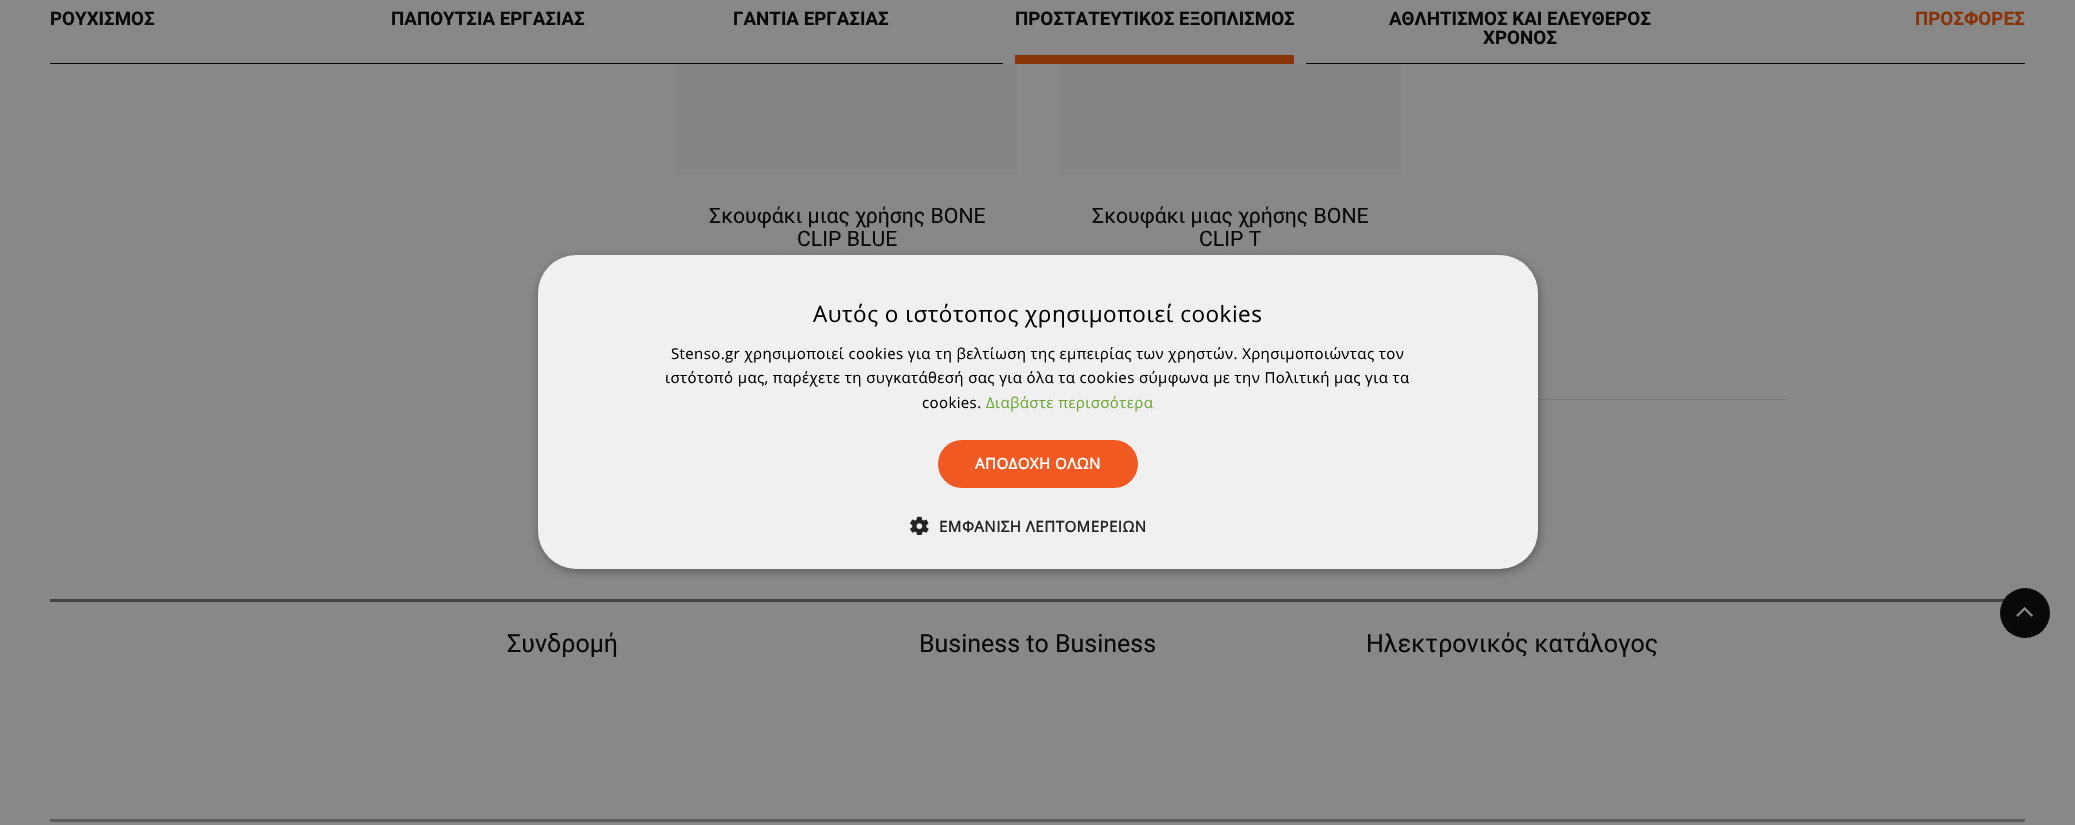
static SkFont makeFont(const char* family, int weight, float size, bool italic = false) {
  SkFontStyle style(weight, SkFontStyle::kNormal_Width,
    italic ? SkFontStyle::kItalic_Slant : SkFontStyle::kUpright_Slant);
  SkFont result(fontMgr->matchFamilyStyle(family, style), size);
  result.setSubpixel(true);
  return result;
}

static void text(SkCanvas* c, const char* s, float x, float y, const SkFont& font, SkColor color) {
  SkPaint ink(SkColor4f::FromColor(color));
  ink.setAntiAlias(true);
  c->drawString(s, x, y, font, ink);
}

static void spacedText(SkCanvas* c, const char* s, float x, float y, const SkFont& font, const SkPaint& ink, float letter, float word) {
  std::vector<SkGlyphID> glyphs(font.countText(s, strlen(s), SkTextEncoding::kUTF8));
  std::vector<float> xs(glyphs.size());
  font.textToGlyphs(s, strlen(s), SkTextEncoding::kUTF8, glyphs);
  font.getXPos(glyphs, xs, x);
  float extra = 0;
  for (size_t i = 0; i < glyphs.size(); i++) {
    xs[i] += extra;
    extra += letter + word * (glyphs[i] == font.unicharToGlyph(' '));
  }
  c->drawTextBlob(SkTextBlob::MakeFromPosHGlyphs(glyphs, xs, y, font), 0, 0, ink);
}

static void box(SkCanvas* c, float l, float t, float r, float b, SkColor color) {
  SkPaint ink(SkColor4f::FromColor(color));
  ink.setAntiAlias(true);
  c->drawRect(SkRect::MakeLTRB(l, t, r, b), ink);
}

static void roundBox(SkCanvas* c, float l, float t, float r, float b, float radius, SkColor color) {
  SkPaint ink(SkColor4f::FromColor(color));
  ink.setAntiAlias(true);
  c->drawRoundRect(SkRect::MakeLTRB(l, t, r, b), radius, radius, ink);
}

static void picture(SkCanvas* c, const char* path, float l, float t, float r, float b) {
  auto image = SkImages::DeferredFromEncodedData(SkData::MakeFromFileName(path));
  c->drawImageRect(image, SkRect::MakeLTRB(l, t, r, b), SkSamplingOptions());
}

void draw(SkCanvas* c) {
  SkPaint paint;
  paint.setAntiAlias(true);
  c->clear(0xff888888);
  box(c, 50, 63, 2025, 64, 0xff090909);
  SkFont face1 = makeFont("Roboto", 700, 18.75f);
  text(c, "ΡΟΥΧΙΣΜΟΣ", 50, 25, face1, 0xff090909);
  text(c, "ΠΑΠΟΥΤΣΙΑ ΕΡΓΑΣΙΑΣ", 391, 25, face1, 0xff090909);
  text(c, "ΓΑΝΤΙΑ ΕΡΓΑΣΙΑΣ", 733, 25, face1, 0xff090909);
  text(c, "ΠΡΟΣΤΑΤΕΥΤΙΚΟΣ ΕΞΟΠΛΙΣΜΟΣ", 1015, 25, face1, 0xff090909);
  box(c, 1003, 63, 1306, 64, 0xff888888);
  box(c, 1015, 55, 1294, 64, 0xff88330a);
  text(c, "ΑΘΛΗΤΙΣΜΟΣ ΚΑΙ ΕΛΕΥΘΕΡΟΣ", 1389, 25, face1, 0xff090909);
  text(c, "ΧΡΟΝΟΣ", 1483, 44, face1, 0xff090909);
  text(c, "ΠΡΟΣΦΟΡΕΣ", 1915, 25, face1, 0xff883309);
  box(c, 677, 64, 1017, 175, 0xff858585);
  SkFont face2 = makeFont("Roboto", 400, 21.25f);
  text(c, "Σκουφάκι μιας χρήσης BONE", 709, 223, face2, 0xff090909);
  text(c, "CLIP BLUE", 797, 246, face2, 0xff090909);
  picture(c, "img_01.png", 783, 254, 784, 255);
  picture(c, "img_01.png", 813, 254, 814, 255);
  picture(c, "img_01.png", 843, 254, 844, 255);
  picture(c, "img_01.png", 873, 254, 874, 255);
  picture(c, "img_02.png", 904, 254, 906, 255);
  box(c, 1061, 64, 1401, 175, 0xff858585);
  text(c, "Σκουφάκι μιας χρήσης BONE", 1092, 223, face2, 0xff090909);
  text(c, "CLIP T", 1199, 246, face2, 0xff090909);
  picture(c, "img_01.png", 1167, 254, 1168, 255);
  picture(c, "img_01.png", 1197, 254, 1198, 255);
  picture(c, "img_01.png", 1227, 254, 1228, 255);
  picture(c, "img_01.png", 1257, 254, 1258, 255);
  picture(c, "img_01.png", 1288, 254, 1289, 255);
  box(c, 1538, 399, 1788, 400, 0xff7b7b7b);
  box(c, 50, 599, 2005, 602, 0xff444444);
  paint.setColor(0xff090909);
  c->drawCircle(2025, 613, 25, paint);
  picture(c, "img_03.png", 2016, 607, 2033, 617);
  SkFont face3 = makeFont("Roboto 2", 400, 25);
  text(c, "Συνδρομή", 507, 652, face3, 0xff090909);
  SkFont face4 = makeFont("Roboto", 400, 25);
  text(c, "Business to Business", 919, 652, face4, 0xff090909);
  text(c, "Ηλεκτρονικός κατάλογος", 1366, 652, face3, 0xff090909);
  box(c, 50, 819, 2025, 822, 0xff5c5c5c);
  paint.setColor(0x59000000);
  paint.setMaskFilter(SkMaskFilter::MakeBlur(kNormal_SkBlurStyle, 5));
  c->drawRoundRect(SkRect::MakeLTRB(539, 258, 1539, 571), 38, 38, paint);
  paint.setMaskFilter(nullptr);
  roundBox(c, 538, 255, 1538, 569, 38, 0xfff0f0f0);
  SkFont face5 = makeFont("Open Sans", 400, 22.5f);
  paint.setColor(0xff000000);
  spacedText(c, "Αυτός ο ιστότοπος χρησιμοποιεί cookies", 813, 322, face5, paint, 0.5f, 0);
  SkFont face6 = makeFont("Open Sans", 400, 15);
  spacedText(c, "Stenso.gr χρησιμοποιεί cookies για τη βελτίωση της εμπειρίας των χρηστών. Χρησιμοποιώντας τον", 671, 359, face6, paint, 0.38f, 0);
  spacedText(c, "ιστότοπό μας, παρέχετε τη συγκατάθεσή σας για όλα τα cookies σύμφωνα με την Πολιτική μας για τα", 665, 383, face6, paint, 0.38f, 0);
  spacedText(c, "cookies.", 922, 408, face6, paint, 0.38f, 0);
  paint.setColor(0xff6fa638);
  spacedText(c, "Διαβάστε περισσότερα", 986, 408, face6, paint, 0.38f, 0);
  roundBox(c, 938, 440, 1138, 488, 24, 0xfff05a22);
  SkFont face7 = makeFont("Open Sans", 700, 15);
  paint.setColor(0xffffffff);
  spacedText(c, "ΑΠΟΔΟΧΗ ΟΛΩΝ", 975, 469, face7, paint, 0.5f, 0);
  picture(c, "img_04.png", 910, 516, 929, 535);
  paint.setColor(0xff242424);
  spacedText(c, "ΕΜΦΑΝΙΣΗ ΛΕΠΤΟΜΕΡΕΙΩΝ", 939, 532, face7, paint, 0.5f, 0);
}
